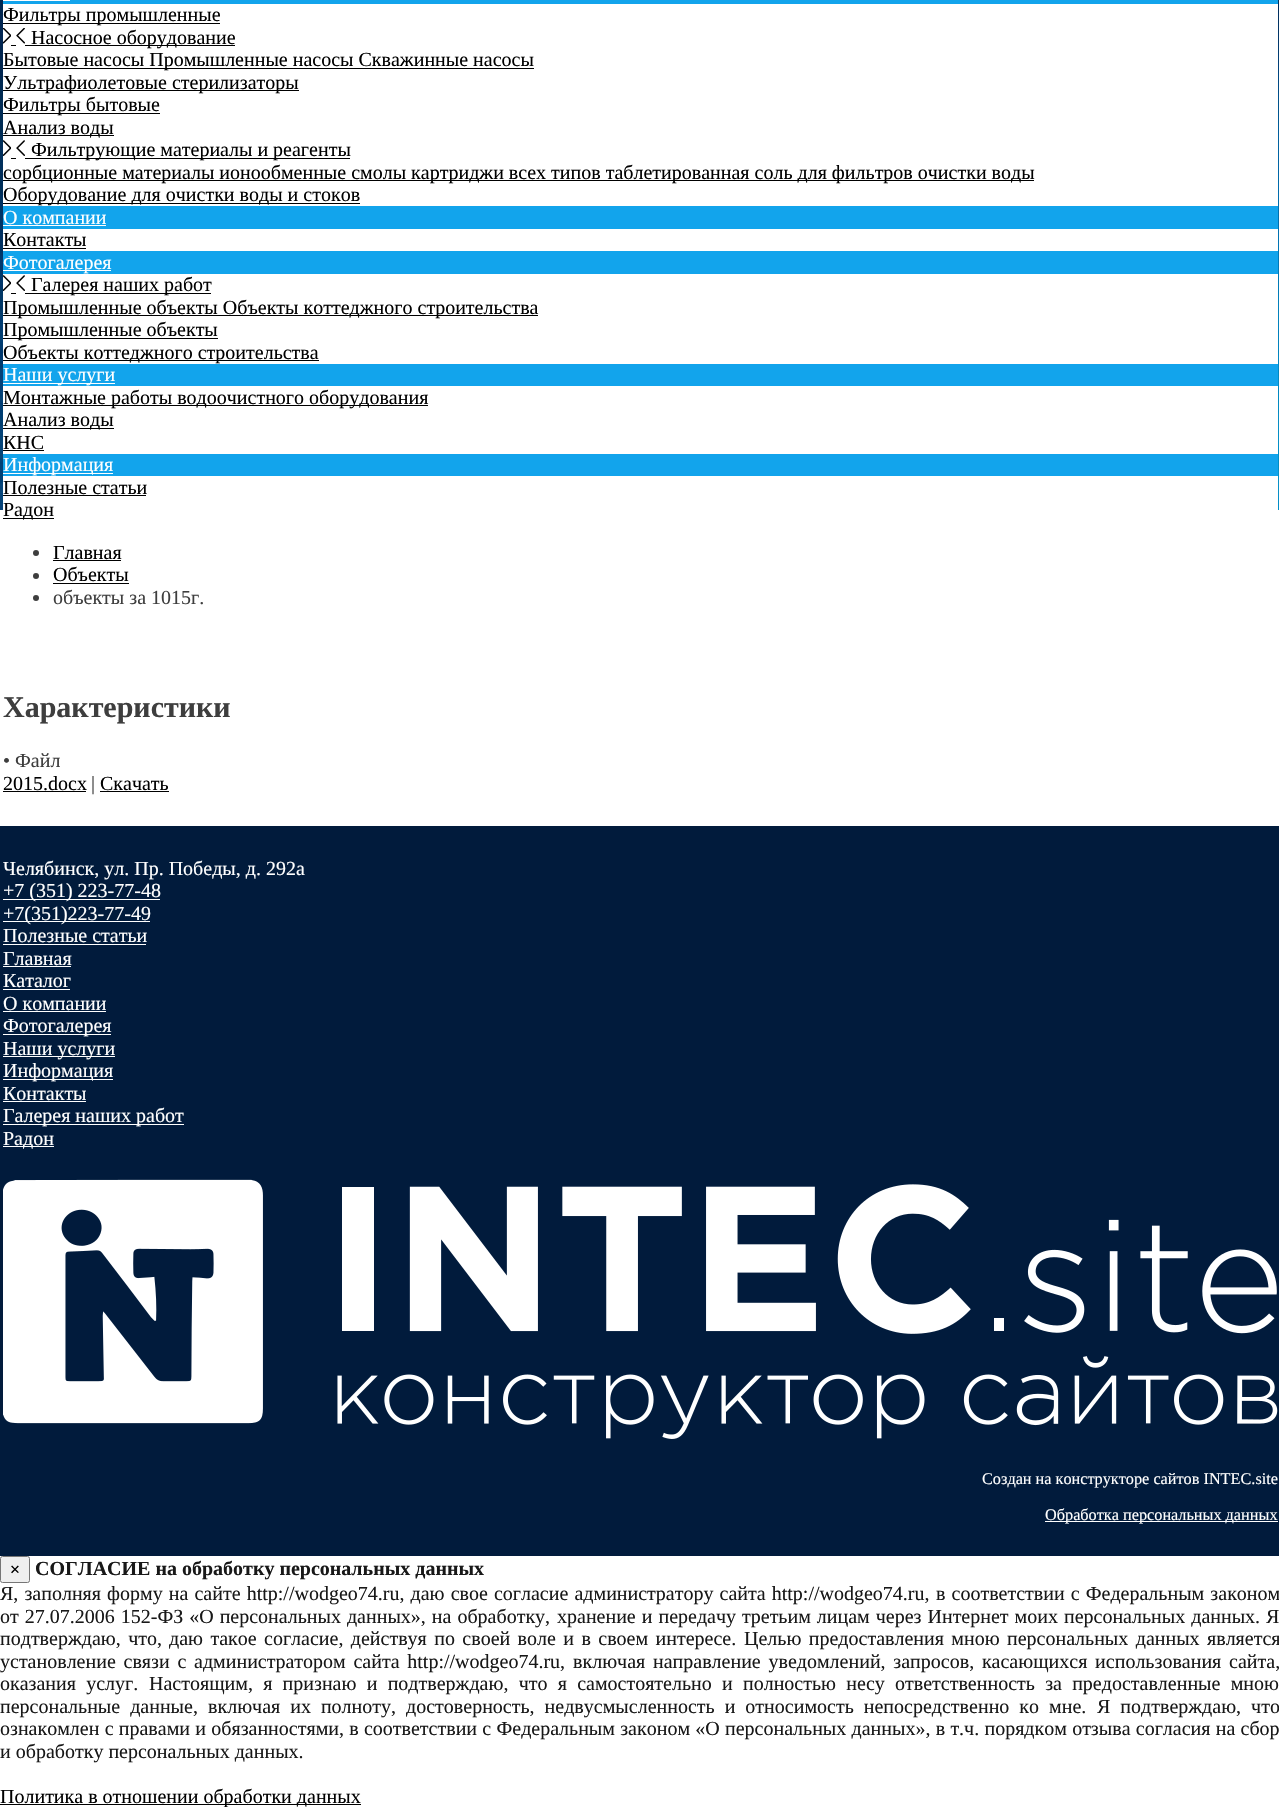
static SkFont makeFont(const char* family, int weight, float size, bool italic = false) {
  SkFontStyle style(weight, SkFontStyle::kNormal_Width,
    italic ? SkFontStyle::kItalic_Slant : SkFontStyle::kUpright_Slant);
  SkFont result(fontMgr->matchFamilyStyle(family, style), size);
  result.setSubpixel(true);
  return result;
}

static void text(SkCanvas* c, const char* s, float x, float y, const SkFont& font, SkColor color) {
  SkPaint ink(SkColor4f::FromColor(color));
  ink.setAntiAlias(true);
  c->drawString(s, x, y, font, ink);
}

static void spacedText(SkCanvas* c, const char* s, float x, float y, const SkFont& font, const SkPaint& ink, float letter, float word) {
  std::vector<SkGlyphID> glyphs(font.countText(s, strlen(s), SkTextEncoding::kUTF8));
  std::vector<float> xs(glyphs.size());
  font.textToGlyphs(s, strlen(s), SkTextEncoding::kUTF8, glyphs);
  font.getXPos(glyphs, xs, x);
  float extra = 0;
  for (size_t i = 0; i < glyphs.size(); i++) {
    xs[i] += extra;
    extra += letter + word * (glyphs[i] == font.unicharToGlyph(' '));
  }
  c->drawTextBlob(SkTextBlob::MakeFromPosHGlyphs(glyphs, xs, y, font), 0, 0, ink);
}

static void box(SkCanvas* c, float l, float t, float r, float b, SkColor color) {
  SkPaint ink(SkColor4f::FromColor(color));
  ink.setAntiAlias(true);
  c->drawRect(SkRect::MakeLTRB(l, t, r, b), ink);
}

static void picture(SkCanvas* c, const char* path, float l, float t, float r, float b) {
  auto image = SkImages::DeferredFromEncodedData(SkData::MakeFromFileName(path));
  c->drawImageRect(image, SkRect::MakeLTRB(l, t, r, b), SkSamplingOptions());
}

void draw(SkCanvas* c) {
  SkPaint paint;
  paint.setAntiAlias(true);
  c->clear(0xffffffff);
  picture(c, "img_01.png", 0, 0, 1279, 510);
  box(c, 3, 0, 1278, 476, 0xff12a4ec);
  box(c, 3, 0, 70, 1, 0xffffffff);
  box(c, 3, 4, 1278, 206, 0xffffffff);
  box(c, 3, 23, 220, 24, 0xff000000);
  SkFont face1 = makeFont("Liberation Serif", 400, 20);
  text(c, "Фильтры промышленные", 3, 21, face1, 0xff000000);
  picture(c, "img_02.png", 3, 28, 11, 44);
  picture(c, "img_03.png", 16, 28, 25, 44);
  box(c, 25, 45, 235, 46, 0xff000000);
  text(c, "Насосное оборудование", 31, 44, face1, 0xff000000);
  box(c, 11, 45, 16, 46, 0xff000000);
  box(c, 3, 68, 534, 69, 0xff000000);
  text(c, "Бытовые насосы Промышленные насосы Скважинные насосы", 3, 66, face1, 0xff000000);
  box(c, 3, 90, 299, 91, 0xff000000);
  text(c, "Ультрафиолетовые стерилизаторы", 3, 89, face1, 0xff000000);
  box(c, 3, 113, 160, 114, 0xff000000);
  text(c, "Фильтры бытовые", 3, 111, face1, 0xff000000);
  box(c, 3, 135, 114, 136, 0xff000000);
  text(c, "Анализ воды", 3, 134, face1, 0xff000000);
  picture(c, "img_04.png", 3, 140, 11, 156);
  picture(c, "img_05.png", 16, 140, 25, 156);
  box(c, 25, 158, 350, 159, 0xff000000);
  text(c, "Фильтрующие материалы и реагенты", 31, 156, face1, 0xff000000);
  box(c, 11, 158, 16, 159, 0xff000000);
  box(c, 3, 180, 1034, 181, 0xff000000);
  text(c, "сорбционные материалы ионообменные смолы картриджи всех типов таблетированная соль для фильтров очистки воды", 3, 179, face1, 0xff000000);
  box(c, 3, 203, 360, 204, 0xff000000);
  text(c, "Оборудование для очистки воды и стоков", 3, 201, face1, 0xff000000);
  text(c, "О компании", 3, 224, face1, 0xffffffff);
  box(c, 3, 225, 106, 226, 0xffffffff);
  box(c, 3, 229, 1278, 251, 0xffffffff);
  text(c, "Контакты", 3, 246, face1, 0xff000000);
  box(c, 3, 248, 86, 249, 0xff000000);
  box(c, 3, 270, 111, 271, 0xffffffff);
  text(c, "Фотогалерея", 3, 269, face1, 0xffffffff);
  box(c, 3, 274, 1278, 364, 0xffffffff);
  picture(c, "img_04.png", 3, 275, 11, 291);
  picture(c, "img_05.png", 16, 275, 25, 291);
  box(c, 25, 293, 211, 294, 0xff000000);
  text(c, "Галерея наших работ", 31, 291, face1, 0xff000000);
  box(c, 11, 293, 16, 294, 0xff000000);
  box(c, 3, 315, 538, 316, 0xff000000);
  text(c, "Промышленные объекты Объекты коттеджного строительства", 3, 314, face1, 0xff000000);
  box(c, 3, 338, 218, 339, 0xff000000);
  text(c, "Промышленные объекты", 3, 336, face1, 0xff000000);
  box(c, 3, 360, 319, 361, 0xff000000);
  text(c, "Объекты коттеджного строительства", 3, 359, face1, 0xff000000);
  box(c, 3, 383, 115, 384, 0xffffffff);
  text(c, "Наши услуги", 3, 381, face1, 0xffffffff);
  box(c, 3, 386, 1278, 454, 0xffffffff);
  box(c, 3, 405, 428, 406, 0xff000000);
  text(c, "Монтажные работы водоочистного оборудования", 3, 404, face1, 0xff000000);
  box(c, 3, 428, 114, 429, 0xff000000);
  text(c, "Анализ воды", 3, 426, face1, 0xff000000);
  text(c, "КНС", 3, 449, face1, 0xff000000);
  box(c, 3, 450, 44, 451, 0xff000000);
  box(c, 3, 473, 113, 474, 0xffffffff);
  text(c, "Информация", 3, 471, face1, 0xffffffff);
  box(c, 3, 476, 1278, 510, 0xffffffff);
  text(c, "Полезные статьи", 3, 494, face1, 0xff000000);
  box(c, 3, 495, 146, 496, 0xff000000);
  box(c, 3, 518, 54, 519, 0xff000000);
  text(c, "Радон", 3, 516, face1, 0xff000000);
  paint.setColor(0xff3e3e3e);
  c->drawCircle(36, 553, 3, paint);
  text(c, "Главная", 53, 559, face1, 0xff000000);
  box(c, 53, 560, 121, 561, 0xff000000);
  c->drawCircle(36, 576, 3, paint);
  text(c, "Объекты", 53, 581, face1, 0xff000000);
  box(c, 53, 583, 129, 584, 0xff000000);
  c->drawCircle(36, 598, 3, paint);
  text(c, "объекты за 1015г.", 53, 604, face1, 0xff3e3e3e);
  SkFont face2 = makeFont("Liberation Serif", 700, 30);
  text(c, "Характеристики", 3, 717, face2, 0xff3e3e3e);
  text(c, "• Файл", 3, 767, face1, 0xff3e3e3e);
  text(c, "2015.docx", 3, 790, face1, 0xff000000);
  box(c, 3, 791, 86, 792, 0xff000000);
  text(c, "|", 91, 790, face1, 0xff3e3e3e);
  text(c, "Скачать", 100, 790, face1, 0xff000000);
  box(c, 100, 791, 169, 792, 0xff000000);
  box(c, 0, 826, 1279, 1556, 0xff011b3c);
  text(c, "Челябинск, ул. Пр. Победы, д. 292а", 3, 875, face1, 0xffffffff);
  box(c, 3, 899, 160, 900, 0xffffffff);
  text(c, "+7 (351) 223-77-48", 3, 897, face1, 0xffffffff);
  box(c, 3, 921, 150, 922, 0xffffffff);
  text(c, "+7(351)223-77-49", 3, 920, face1, 0xffffffff);
  text(c, "Полезные статьи", 3, 942, face1, 0xffffffff);
  box(c, 3, 944, 146, 945, 0xffffffff);
  text(c, "Главная", 3, 965, face1, 0xffffffff);
  box(c, 3, 966, 71, 967, 0xffffffff);
  text(c, "Каталог", 3, 987, face1, 0xffffffff);
  box(c, 3, 989, 70, 990, 0xffffffff);
  text(c, "О компании", 3, 1010, face1, 0xffffffff);
  box(c, 3, 1011, 106, 1012, 0xffffffff);
  box(c, 3, 1034, 111, 1035, 0xffffffff);
  text(c, "Фотогалерея", 3, 1032, face1, 0xffffffff);
  box(c, 3, 1056, 115, 1057, 0xffffffff);
  text(c, "Наши услуги", 3, 1055, face1, 0xffffffff);
  box(c, 3, 1079, 113, 1080, 0xffffffff);
  text(c, "Информация", 3, 1077, face1, 0xffffffff);
  text(c, "Контакты", 3, 1100, face1, 0xffffffff);
  box(c, 3, 1101, 86, 1102, 0xffffffff);
  box(c, 3, 1124, 184, 1125, 0xffffffff);
  text(c, "Галерея наших работ", 3, 1122, face1, 0xffffffff);
  box(c, 3, 1146, 54, 1147, 0xffffffff);
  text(c, "Радон", 3, 1145, face1, 0xffffffff);
  picture(c, "img_06.png", 3, 1179, 1278, 1439);
  SkFont face3 = makeFont("Liberation Serif", 400, 16.25f);
  text(c, "Создан на конструкторе сайтов INTEC.site", 982, 1484, face3, 0xffffffff);
  box(c, 1045, 1521, 1278, 1522, 0xffffffff);
  text(c, "Обработка персональных данных", 1045, 1520, face3, 0xffffffff);
  paint.setColor(0xffefefef);
  c->drawRoundRect(SkRect::MakeLTRB(0.5f, 1556.5f, 29.5f, 1582.5f), 2, 2, paint);
  paint.setStyle(SkPaint::kStroke_Style);
  paint.setStrokeWidth(1);
  paint.setColor(0xff767676);
  c->drawRoundRect(SkRect::MakeLTRB(0.5f, 1556.5f, 29.5f, 1582.5f), 2, 2, paint);
  SkFont face4 = makeFont("Liberation Sans", 400, 17);
  text(c, "×", 10, 1575, face4, 0xff000000);
  SkFont face5 = makeFont("Liberation Serif", 700, 20);
  text(c, "СОГЛАСИЕ на обработку персональных данных", 35, 1575, face5, 0xff181818);
  paint.setStyle(SkPaint::kFill_Style);
  paint.setColor(0xff181818);
  spacedText(c, "Я, заполняя форму на сайте http://wodgeo74.ru, даю свое согласие администратору сайта http://wodgeo74.ru,", 0, 1600, face1, paint, 0, 1.1f);
  spacedText(c, "в соответствии с Федеральным законом", 936, 1600, face1, paint, 0, 1.1f);
  spacedText(c, "от 27.07.2006 152-ФЗ «О персональных данных», на обработку,", 0, 1623, face1, paint, 0, 1);
  spacedText(c, "хранение и передачу третьим лицам через Интернет моих персональных данных. Я", 557, 1623, face1, paint, 0, 1);
  spacedText(c, "подтверждаю, что,", 0, 1645, face1, paint, 0, 2.4f);
  spacedText(c, "даю такое согласие, действуя по своей воле и в своем интересе.", 169, 1645, face1, paint, 0, 2.4f);
  spacedText(c, "Целью предоставления мною персональных данных является", 744, 1645, face1, paint, 0, 2.4f);
  spacedText(c, "установление связи с администратором сайта http://wodgeo74.ru,", 0, 1668, face1, paint, 0, 2.75f);
  spacedText(c, "включая направление уведомлений, запросов, касающихся использования сайта,", 573, 1668, face1, paint, 0, 2.75f);
  spacedText(c, "оказания услуг.", 0, 1690, face1, paint, 0, 5.25f);
  spacedText(c, "Настоящим, я признаю и подтверждаю, что я самостоятельно и полностью несу ответственность за предоставленные мною", 149, 1690, face1, paint, 0, 5.25f);
  spacedText(c, "персональные данные,", 0, 1713, face1, paint, 0, 5);
  spacedText(c, "включая их полноту, достоверность, недвусмысленность и относимость непосредственно ко мне.", 208, 1713, face1, paint, 0, 5);
  spacedText(c, "Я подтверждаю, что", 1097, 1713, face1, paint, 0, 5);
  spacedText(c, "ознакомлен с правами и обязанностями, в соответствии с Федеральным законом «О персональных данных», в т.ч. порядком отзыва согласия на сбор", 0, 1735, face1, paint, 0, 0.25f);
  text(c, "и обработку персональных данных.", 0, 1758, face1, 0xff181818);
  box(c, 0, 1804, 361, 1805, 0xff000000);
  text(c, "Политика в отношении обработки данных", 0, 1803, face1, 0xff000000);
}
